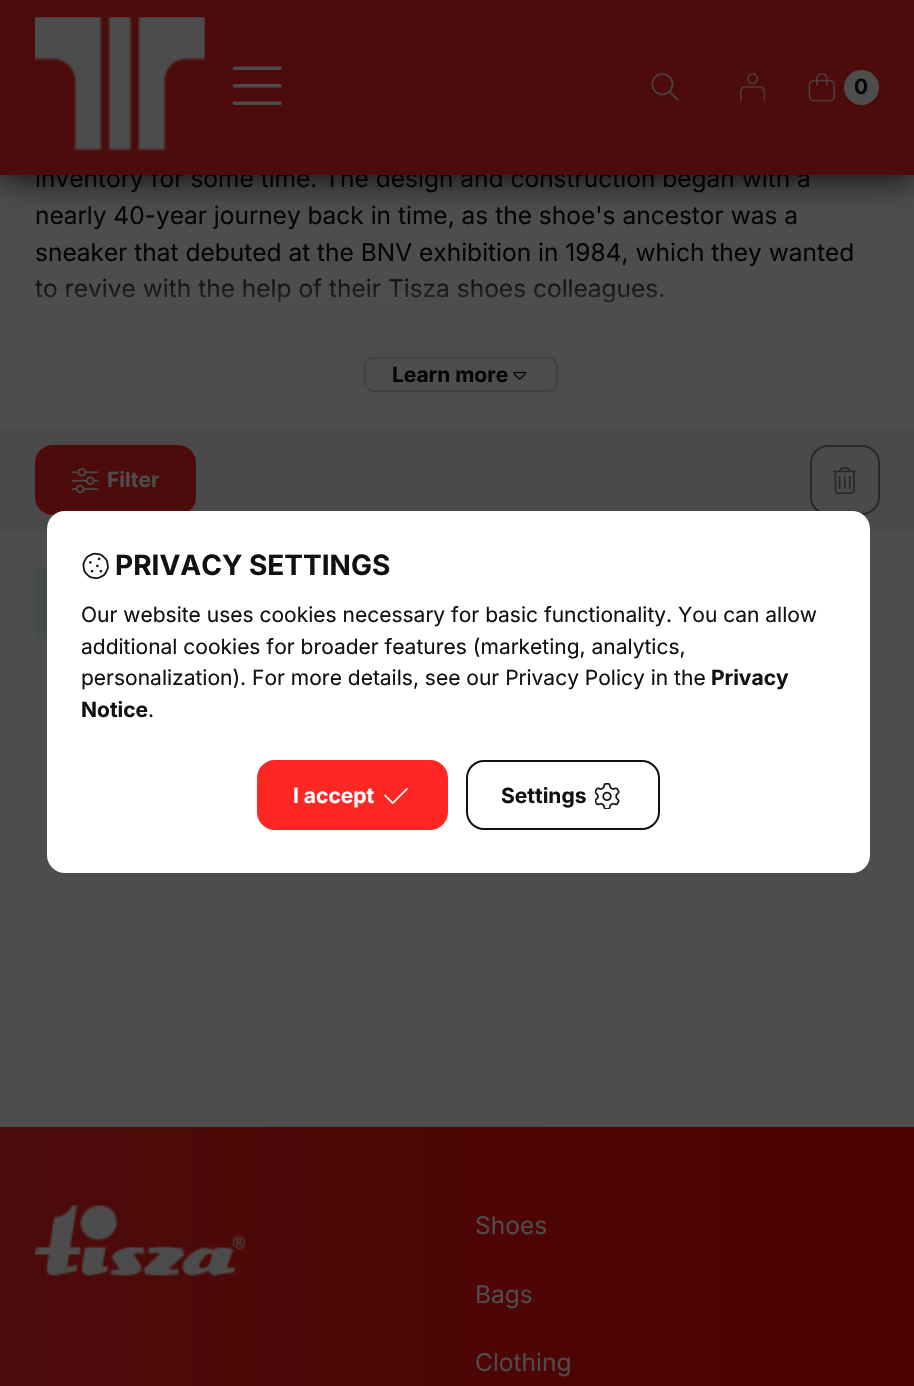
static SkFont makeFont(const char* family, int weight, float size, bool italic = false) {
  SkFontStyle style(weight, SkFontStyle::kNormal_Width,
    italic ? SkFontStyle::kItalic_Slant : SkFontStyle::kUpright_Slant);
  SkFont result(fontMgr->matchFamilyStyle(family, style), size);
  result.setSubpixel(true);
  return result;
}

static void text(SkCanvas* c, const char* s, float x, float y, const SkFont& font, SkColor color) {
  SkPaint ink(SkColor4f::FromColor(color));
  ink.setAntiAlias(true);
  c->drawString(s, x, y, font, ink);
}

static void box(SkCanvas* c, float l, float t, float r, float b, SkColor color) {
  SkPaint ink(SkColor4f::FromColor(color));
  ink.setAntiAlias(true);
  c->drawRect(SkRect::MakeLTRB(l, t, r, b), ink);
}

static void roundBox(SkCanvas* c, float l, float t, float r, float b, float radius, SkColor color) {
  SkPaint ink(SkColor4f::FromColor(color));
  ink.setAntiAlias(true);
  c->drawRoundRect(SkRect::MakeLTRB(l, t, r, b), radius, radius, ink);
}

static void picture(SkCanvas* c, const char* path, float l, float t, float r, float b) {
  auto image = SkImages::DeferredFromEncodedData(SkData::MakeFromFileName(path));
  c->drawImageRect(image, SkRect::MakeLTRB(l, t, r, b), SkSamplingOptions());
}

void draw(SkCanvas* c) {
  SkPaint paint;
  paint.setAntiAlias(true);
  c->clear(0xff4d4d4d);
  SkFont face1 = makeFont("Inter", 400, 24.5f);
  text(c, "inventory for some time. The design and construction began with a", 35, 187, face1, 0xff050505);
  box(c, 0, 0, 914, 175, 0xff4c0c0b);
  c->save();
  c->clipRect(SkRect::MakeLTRB(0, 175, 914, 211));
  paint.setColor(0xff000000);
  paint.setMaskFilter(SkMaskFilter::MakeBlur(kNormal_SkBlurStyle, 17.5f));
  c->drawRect(SkRect::MakeLTRB(0, 0, 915, 175), paint);
  paint.setMaskFilter(nullptr);
  c->restore();
  picture(c, "img_01.png", 35, 17, 205, 151);
  picture(c, "img_02.png", 232, 66, 282, 105);
  picture(c, "img_03.png", 651, 73, 679, 102);
  picture(c, "img_04.png", 740, 73, 765, 102);
  picture(c, "img_05.png", 808, 73, 835, 102);
  paint.setColor(0xff4d4d4d);
  c->drawCircle(861.5f, 87.5f, 17.5f, paint);
  SkFont face2 = makeFont("Inter", 700, 21);
  text(c, "0", 854, 94, face2, 0xff050505);
  text(c, "nearly 40-year journey back in time, as the shoe's ancestor was a", 35, 224, face1, 0xff050505);
  text(c, "sneaker that debuted at the BNV exhibition in 1984, which they wanted", 35, 261, face1, 0xff050505);
  text(c, "to revive with the help of their Tisza shoes colleagues.", 35, 297, face1, 0xff050505);
  {
    const SkColor colors[] = {0x004d4d4d, 0xff4d4d4d};
    const float stops[] = {0, 1};
    const SkPoint ends[] = {{461, 269}, {461, 340}};
    paint.setShader(SkGradientShader::MakeLinear(ends, colors, stops, 2, SkTileMode::kClamp));
    paint.setAlpha(255);
  }
  c->drawRect(SkRect::MakeLTRB(35, 278, 664, 303), paint);
  paint.setStyle(SkPaint::kStroke_Style);
  paint.setStrokeWidth(2);
  paint.setShader(nullptr);
  paint.setColor(0xff424242);
  c->drawRoundRect(SkRect::MakeLTRB(365, 358, 557, 391), 8, 8, paint);
  text(c, "Learn more", 392, 382, face2, 0xff050505);
  picture(c, "img_06.png", 513, 371, 527, 380);
  box(c, 0, 427, 914, 532, 0xff4a4a4a);
  paint.setStyle(SkPaint::kFill_Style);
  paint.setColor(0xff4c0c0b);
  c->drawRoundRect(SkRect::MakeLTRB(36, 446, 195, 514), 17, 17, paint);
  paint.setStyle(SkPaint::kStroke_Style);
  c->drawRoundRect(SkRect::MakeLTRB(36, 446, 195, 514), 17, 17, paint);
  picture(c, "img_07.png", 72, 468, 98, 494);
  text(c, "Filter", 107, 487, face2, 0xff4d4d4d);
  paint.setColor(0xff282828);
  c->drawRoundRect(SkRect::MakeLTRB(811, 446, 879, 514), 17, 17, paint);
  picture(c, "img_08.png", 833, 467, 857, 494);
  box(c, 35, 567, 47, 639, 0xff464a4b);
  roundBox(c, 47, 511, 870, 873, 18, 0xffffffff);
  picture(c, "img_09.png", 82, 552, 109, 579);
  SkFont face3 = makeFont("Inter", 700, 28);
  text(c, "PRIVACY SETTINGS", 115, 575, face3, 0xff111111);
  SkFont face4 = makeFont("Inter", 400, 21);
  text(c, "Our website uses cookies necessary for basic functionality. You can allow", 81, 622, face4, 0xff111111);
  c->save();
  c->clipRect(SkRect::MakeLTRB(82, 599, 835, 838));
  text(c, "additional cookies for broader features (marketing, analytics,", 81, 654, face4, 0xff111111);
  c->restore();
  text(c, "personalization). For more details, see our Privacy Policy in the", 81, 685, face4, 0xff111111);
  text(c, "Privacy", 711, 685, face2, 0xff111111);
  text(c, "Notice", 81, 717, face2, 0xff111111);
  text(c, ".", 148, 717, face4, 0xff111111);
  paint.setStyle(SkPaint::kFill_Style);
  paint.setColor(0xfffe2724);
  c->drawRoundRect(SkRect::MakeLTRB(258, 761, 447, 829), 17, 17, paint);
  paint.setStyle(SkPaint::kStroke_Style);
  c->drawRoundRect(SkRect::MakeLTRB(258, 761, 447, 829), 17, 17, paint);
  text(c, "I accept", 293, 803, face2, 0xffffffff);
  picture(c, "img_10.png", 384, 788, 408, 804);
  paint.setColor(0xff111111);
  c->drawRoundRect(SkRect::MakeLTRB(467, 761, 659, 829), 17, 17, paint);
  text(c, "Settings", 501, 803, face2, 0xff111111);
  picture(c, "img_11.png", 595, 782, 620, 809);
  paint.setStyle(SkPaint::kFill_Style);
  {
    const SkColor colors[] = {0xff4c0c0b, 0xff4d0000};
    const float stops[] = {0, 1};
    const SkPoint ends[] = {{0, 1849}, {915, 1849}};
    paint.setShader(SkGradientShader::MakeLinear(ends, colors, stops, 2, SkTileMode::kClamp));
    paint.setAlpha(255);
  }
  c->drawRect(SkRect::MakeLTRB(0, 1127, 914, 1386), paint);
  picture(c, "img_12.png", 35, 1205, 245, 1276);
  text(c, "Shoes", 475, 1234, face1, 0xff4d4d4d);
  text(c, "Bags", 475, 1303, face1, 0xff4d4d4d);
  text(c, "Clothing", 475, 1371, face1, 0xff4d4d4d);
}
